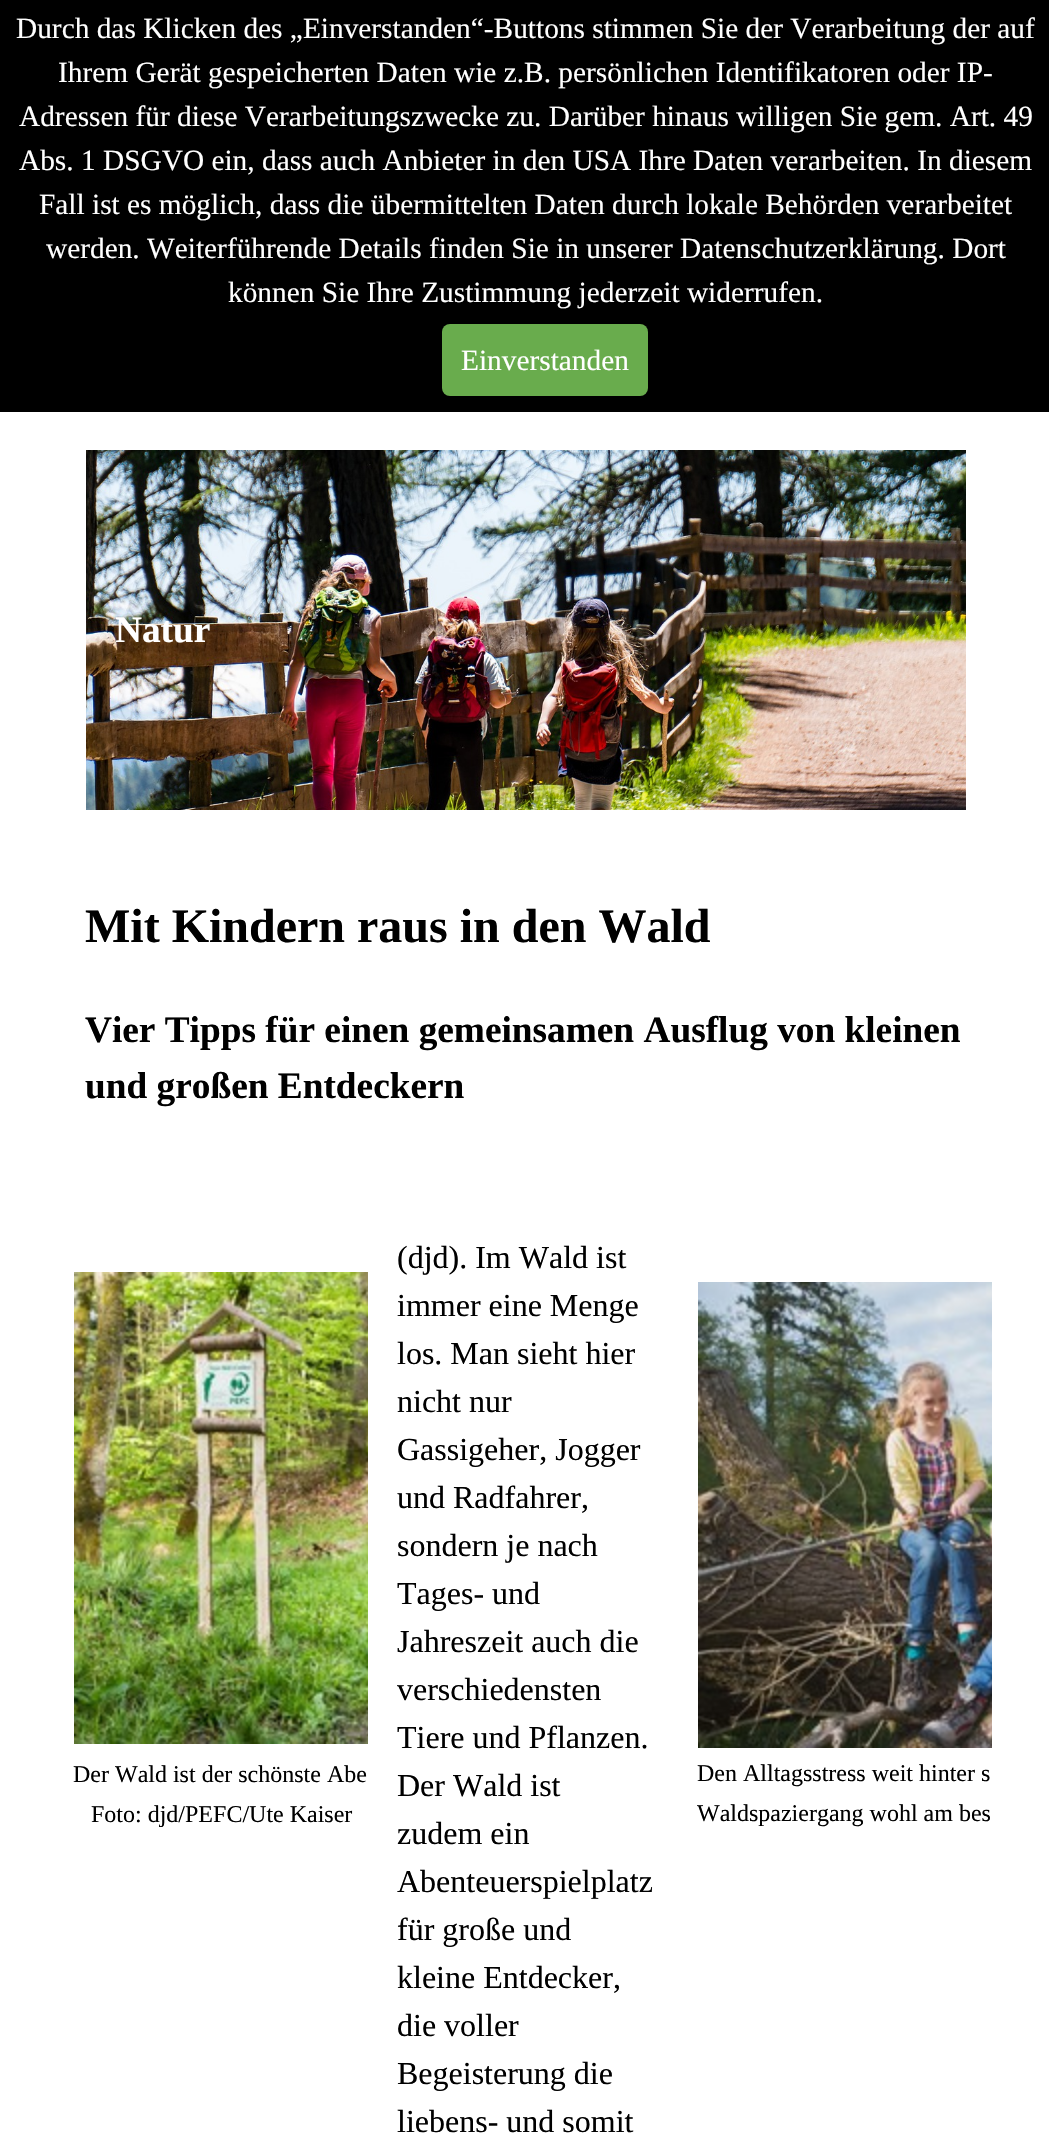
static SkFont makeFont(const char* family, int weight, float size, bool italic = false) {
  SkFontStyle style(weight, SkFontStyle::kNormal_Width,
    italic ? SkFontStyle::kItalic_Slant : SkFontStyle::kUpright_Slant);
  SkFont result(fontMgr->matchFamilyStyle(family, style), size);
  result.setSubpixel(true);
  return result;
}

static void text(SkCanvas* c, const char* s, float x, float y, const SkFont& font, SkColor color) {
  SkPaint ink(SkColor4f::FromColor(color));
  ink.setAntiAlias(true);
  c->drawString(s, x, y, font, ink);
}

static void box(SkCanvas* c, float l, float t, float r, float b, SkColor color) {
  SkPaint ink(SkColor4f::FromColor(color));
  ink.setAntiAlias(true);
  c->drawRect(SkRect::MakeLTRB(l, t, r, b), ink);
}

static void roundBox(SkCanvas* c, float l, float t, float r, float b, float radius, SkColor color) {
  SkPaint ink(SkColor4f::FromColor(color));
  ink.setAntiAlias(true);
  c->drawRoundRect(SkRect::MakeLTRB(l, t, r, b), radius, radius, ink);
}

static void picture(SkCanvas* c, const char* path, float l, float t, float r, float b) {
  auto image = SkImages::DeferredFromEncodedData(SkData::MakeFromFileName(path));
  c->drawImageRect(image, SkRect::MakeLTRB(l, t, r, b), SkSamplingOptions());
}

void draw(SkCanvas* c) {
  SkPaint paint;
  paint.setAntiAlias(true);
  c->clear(0xffffffff);
  box(c, 0, 0, 1049, 412, 0xff000000);
  SkFont face1 = makeFont("Liberation Serif", 400, 29.35f);
  text(c, "Durch das Klicken des „Einverstanden“-Buttons stimmen Sie der Verarbeitung der auf", 16, 38, face1, 0xffffffff);
  text(c, "Ihrem Gerät gespeicherten Daten wie z.B. persönlichen Identifikatoren oder IP-", 58, 82, face1, 0xffffffff);
  text(c, "Adressen für diese Verarbeitungszwecke zu. Darüber hinaus willigen Sie gem. Art. 49", 19, 126, face1, 0xffffffff);
  text(c, "Abs. 1 DSGVO ein, dass auch Anbieter in den USA Ihre Daten verarbeiten. In diesem", 19, 170, face1, 0xffffffff);
  text(c, "Fall ist es möglich, dass die übermittelten Daten durch lokale Behörden verarbeitet", 39, 214, face1, 0xffffffff);
  text(c, "werden. Weiterführende Details finden Sie in unserer Datenschutzerklärung. Dort", 46, 258, face1, 0xffffffff);
  text(c, "können Sie Ihre Zustimmung jederzeit widerrufen.", 228, 302, face1, 0xffffffff);
  roundBox(c, 442, 324, 648, 396, 8, 0xff69ac4d);
  text(c, "Einverstanden", 461, 370, face1, 0xffffffff);
  picture(c, "img_01.png", 86, 450, 966, 810);
  c->save();
  c->clipRect(SkRect::MakeLTRB(116, 608, 936, 652));
  SkFont face2 = makeFont("Liberation Serif", 700, 37.3f);
  text(c, "Natur", 115, 642, face2, 0xffffffff);
  c->restore();
  SkFont face3 = makeFont("Liberation Serif", 700, 48);
  text(c, "Mit Kindern raus in den Wald", 85, 942, face3, 0xff000000);
  text(c, "Vier Tipps für einen gemeinsamen Ausflug von kleinen", 85, 1042, face2, 0xff000000);
  text(c, "und großen Entdeckern", 85, 1098, face2, 0xff000000);
  picture(c, "img_02.png", 74, 1272, 368, 1744);
  SkFont face4 = makeFont("Liberation Serif", 400, 24);
  text(c, "Der Wald ist der schönste Abe", 73, 1782, face4, 0xff000000);
  text(c, "Foto: djd/PEFC/Ute Kaiser", 91, 1822, face4, 0xff000000);
  SkFont face5 = makeFont("Liberation Serif", 400, 32);
  text(c, "(djd). Im Wald ist", 397, 1268, face5, 0xff000000);
  text(c, "immer eine Menge", 397, 1316, face5, 0xff000000);
  text(c, "los. Man sieht hier", 397, 1364, face5, 0xff000000);
  text(c, "nicht nur", 397, 1412, face5, 0xff000000);
  text(c, "Gassigeher, Jogger", 397, 1460, face5, 0xff000000);
  text(c, "und Radfahrer,", 397, 1508, face5, 0xff000000);
  text(c, "sondern je nach", 397, 1556, face5, 0xff000000);
  text(c, "Tages- und", 397, 1604, face5, 0xff000000);
  text(c, "Jahreszeit auch die", 397, 1652, face5, 0xff000000);
  text(c, "verschiedensten", 397, 1700, face5, 0xff000000);
  text(c, "Tiere und Pflanzen.", 397, 1748, face5, 0xff000000);
  text(c, "Der Wald ist", 397, 1796, face5, 0xff000000);
  text(c, "zudem ein", 397, 1844, face5, 0xff000000);
  text(c, "Abenteuerspielplatz", 397, 1892, face5, 0xff000000);
  text(c, "für große und", 397, 1940, face5, 0xff000000);
  text(c, "kleine Entdecker,", 397, 1988, face5, 0xff000000);
  text(c, "die voller", 397, 2036, face5, 0xff000000);
  text(c, "Begeisterung die", 397, 2084, face5, 0xff000000);
  text(c, "liebens- und somit", 397, 2132, face5, 0xff000000);
  picture(c, "img_03.png", 698, 1282, 992, 1748);
  text(c, "Den Alltagsstress weit hinter s", 697, 1781, face4, 0xff000000);
  text(c, "Waldspaziergang wohl am bes", 697, 1821, face4, 0xff000000);
}
